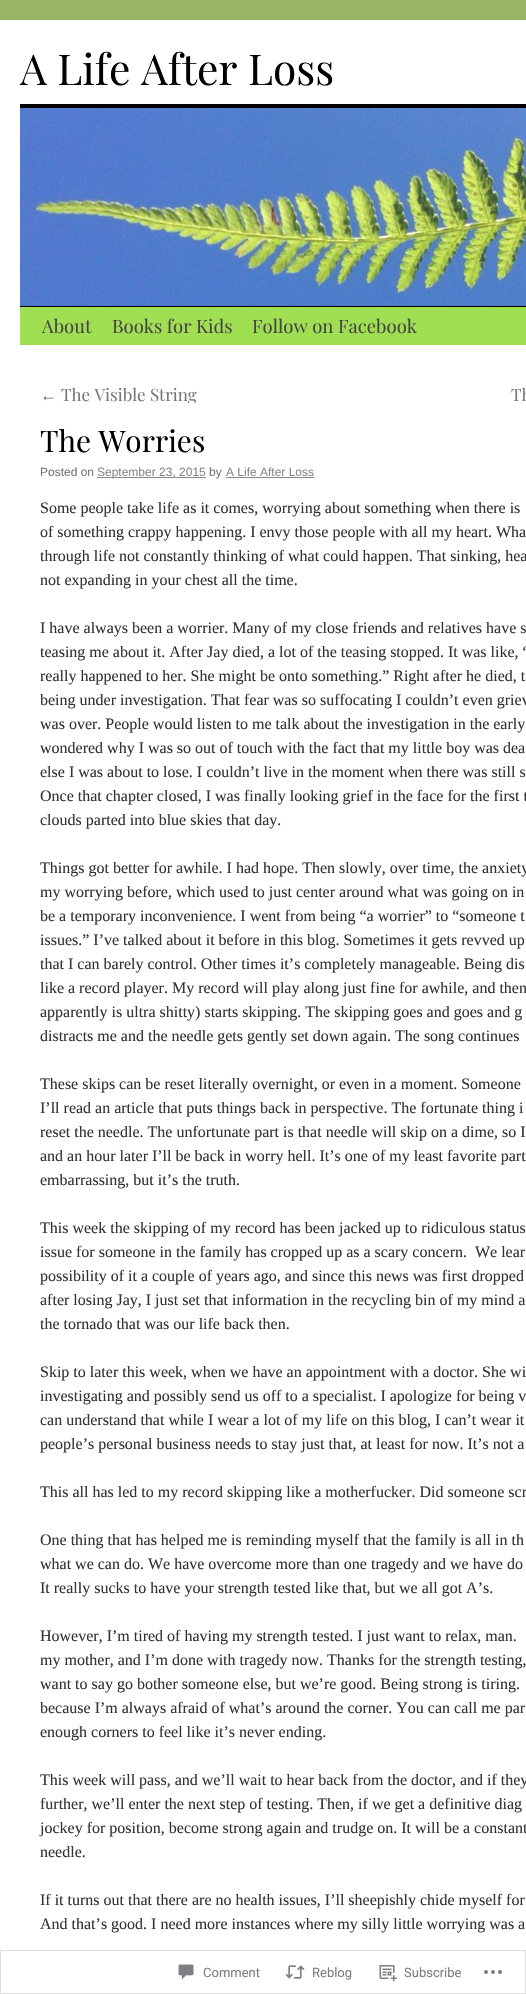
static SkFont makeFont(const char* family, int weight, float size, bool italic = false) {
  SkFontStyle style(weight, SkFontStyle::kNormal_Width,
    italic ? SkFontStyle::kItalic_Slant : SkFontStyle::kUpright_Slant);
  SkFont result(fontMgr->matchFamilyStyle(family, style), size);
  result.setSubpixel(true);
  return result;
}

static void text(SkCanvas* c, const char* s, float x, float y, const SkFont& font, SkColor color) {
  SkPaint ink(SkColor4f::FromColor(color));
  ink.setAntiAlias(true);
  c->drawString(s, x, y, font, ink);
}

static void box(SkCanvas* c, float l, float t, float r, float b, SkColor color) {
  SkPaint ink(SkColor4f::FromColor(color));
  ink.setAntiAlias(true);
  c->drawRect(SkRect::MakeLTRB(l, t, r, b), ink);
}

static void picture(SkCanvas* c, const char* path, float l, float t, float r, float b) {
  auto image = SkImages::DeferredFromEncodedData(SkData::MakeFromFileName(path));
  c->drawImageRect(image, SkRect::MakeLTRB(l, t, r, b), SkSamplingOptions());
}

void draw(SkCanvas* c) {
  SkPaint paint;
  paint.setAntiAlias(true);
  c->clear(0xff97b562);
  box(c, 0, 20, 526, 1994, 0xffffffff);
  SkFont face1 = makeFont("Playfair Display", 400, 42.5f);
  text(c, "A Life After Loss", 20, 85, face1, 0xff000000);
  box(c, 20, 104, 526, 108, 0xff000000);
  box(c, 20, 306, 526, 307, 0xff000000);
  picture(c, "img_01.png", 20, 108, 526, 306);
  box(c, 20, 307, 526, 345, 0xffa0df52);
  SkFont face2 = makeFont("Playfair Display", 400, 18.5f);
  text(c, "About", 42, 333, face2, 0xff444444);
  text(c, "Books for Kids", 112, 333, face2, 0xff444444);
  text(c, "Follow on Facebook", 252, 333, face2, 0xff444444);
  SkFont face3 = makeFont("Liberation Serif", 400, 17);
  text(c, "←", 40, 401, face3, 0xff777777);
  c->save();
  c->clipRect(SkRect::MakeLTRB(40, 385, 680, 403));
  SkFont face4 = makeFont("Playfair Display", 400, 17);
  text(c, "The Visible String", 61, 401, face4, 0xff777777);
  c->restore();
  text(c, "Th", 511, 401, face4, 0xff777777);
  SkFont face5 = makeFont("Playfair Display", 400, 29.75f);
  text(c, "The Worries", 40, 452, face5, 0xff000000);
  SkFont face6 = makeFont("Liberation Sans", 400, 12);
  text(c, "Posted on", 40, 476, face6, 0xff777777);
  box(c, 97, 477, 206, 478, 0xff888888);
  text(c, "September 23, 2015", 97, 476, face6, 0xff888888);
  text(c, "by", 209, 476, face6, 0xff777777);
  text(c, "A Life After Loss", 226, 476, face6, 0xff888888);
  box(c, 226, 477, 314, 478, 0xff888888);
  SkFont face7 = makeFont("Liberation Serif", 400, 16);
  text(c, "Some people take life as it comes, worrying about something when there is", 40, 513, face7, 0xff333333);
  text(c, "of something crappy happening. I envy those people with all my heart. Wha", 40, 537, face7, 0xff333333);
  text(c, "through life not constantly thinking of what could happen. That sinking, hea", 40, 561, face7, 0xff333333);
  text(c, "not expanding in your chest all the time.", 40, 585, face7, 0xff333333);
  text(c, "I have always been a worrier. Many of my close friends and relatives have s", 40, 633, face7, 0xff333333);
  text(c, "teasing me about it. After Jay died, a lot of the teasing stopped. It was like, “", 40, 657, face7, 0xff333333);
  text(c, "really happened to her. She might be onto something.” Right after he died, t", 40, 681, face7, 0xff333333);
  text(c, "being under investigation. That fear was so suffocating I couldn’t even griev", 40, 705, face7, 0xff333333);
  text(c, "was over. People would listen to me talk about the investigation in the early", 40, 729, face7, 0xff333333);
  text(c, "wondered why I was so out of touch with the fact that my little boy was dea", 40, 753, face7, 0xff333333);
  text(c, "else I was about to lose. I couldn’t live in the moment when there was still s", 40, 777, face7, 0xff333333);
  text(c, "Once that chapter closed, I was finally looking grief in the face for the first t", 40, 801, face7, 0xff333333);
  text(c, "clouds parted into blue skies that day.", 40, 825, face7, 0xff333333);
  text(c, "Things got better for awhile. I had hope. Then slowly, over time, the anxiety", 40, 873, face7, 0xff333333);
  text(c, "my worrying before, which used to just center around what was going on in", 40, 897, face7, 0xff333333);
  text(c, "be a temporary inconvenience. I went from being “a worrier” to “someone t", 40, 921, face7, 0xff333333);
  text(c, "issues.” I’ve talked about it before in this blog. Sometimes it gets revved up", 40, 945, face7, 0xff333333);
  text(c, "that I can barely control. Other times it’s completely manageable. Being dis", 40, 969, face7, 0xff333333);
  text(c, "like a record player. My record will play along just fine for awhile, and then", 40, 993, face7, 0xff333333);
  text(c, "apparently is ultra shitty) starts skipping. The skipping goes and goes and g", 40, 1017, face7, 0xff333333);
  text(c, "distracts me and the needle gets gently set down again. The song continues", 40, 1041, face7, 0xff333333);
  text(c, "These skips can be reset literally overnight, or even in a moment. Someone", 40, 1089, face7, 0xff333333);
  text(c, "I’ll read an article that puts things back in perspective. The fortunate thing i", 40, 1113, face7, 0xff333333);
  text(c, "reset the needle. The unfortunate part is that needle will skip on a dime, so I", 40, 1137, face7, 0xff333333);
  text(c, "and an hour later I’ll be back in worry hell. It’s one of my least favorite part", 40, 1161, face7, 0xff333333);
  text(c, "embarrassing, but it’s the truth.", 40, 1185, face7, 0xff333333);
  text(c, "This week the skipping of my record has been jacked up to ridiculous status", 40, 1233, face7, 0xff333333);
  text(c, "issue for someone in the family has cropped up as a scary concern.  We lear", 40, 1257, face7, 0xff333333);
  text(c, "possibility of it a couple of years ago, and since this news was first dropped", 40, 1281, face7, 0xff333333);
  text(c, "after losing Jay, I just set that information in the recycling bin of my mind a", 40, 1305, face7, 0xff333333);
  text(c, "the tornado that was our life back then.", 40, 1329, face7, 0xff333333);
  text(c, "Skip to later this week, when we have an appointment with a doctor. She wi", 40, 1377, face7, 0xff333333);
  text(c, "investigating and possibly send us off to a specialist. I apologize for being v", 40, 1401, face7, 0xff333333);
  text(c, "can understand that while I wear a lot of my life on this blog, I can’t wear it", 40, 1425, face7, 0xff333333);
  text(c, "people’s personal business needs to stay just that, at least for now. It’s not a", 40, 1449, face7, 0xff333333);
  text(c, "This all has led to my record skipping like a motherfucker. Did someone scr", 40, 1497, face7, 0xff333333);
  text(c, "One thing that has helped me is reminding myself that the family is all in th", 40, 1545, face7, 0xff333333);
  text(c, "what we can do. We have overcome more than one tragedy and we have do", 40, 1569, face7, 0xff333333);
  text(c, "It really sucks to have your strength tested like that, but we all got A’s.", 40, 1593, face7, 0xff333333);
  text(c, "However, I’m tired of having my strength tested. I just want to relax, man.", 40, 1641, face7, 0xff333333);
  text(c, "my mother, and I’m done with tragedy now. Thanks for the strength testing,", 40, 1665, face7, 0xff333333);
  text(c, "want to say go bother someone else, but we’re good. Being strong is tiring.", 40, 1689, face7, 0xff333333);
  text(c, "because I’m always afraid of what’s around the corner. You can call me par", 40, 1713, face7, 0xff333333);
  text(c, "enough corners to feel like it’s never ending.", 40, 1737, face7, 0xff333333);
  text(c, "This week will pass, and we’ll wait to hear back from the doctor, and if they", 40, 1785, face7, 0xff333333);
  text(c, "further, we’ll enter the next step of testing. Then, if we get a definitive diag", 40, 1809, face7, 0xff333333);
  text(c, "jockey for position, become strong again and trudge on. It will be a constant", 40, 1833, face7, 0xff333333);
  text(c, "needle.", 40, 1857, face7, 0xff333333);
  text(c, "If it turns out that there are no health issues, I’ll sheepishly chide myself for", 40, 1905, face7, 0xff333333);
  text(c, "And that’s good. I need more instances where my silly little worrying was a", 40, 1929, face7, 0xff333333);
  paint.setStyle(SkPaint::kStroke_Style);
  paint.setStrokeWidth(1);
  paint.setColor(0xfadcdcde);
  c->drawRect(SkRect::MakeLTRB(0.5f, 1950.5f, 525.5f, 1993.5f), paint);
  picture(c, "img_02.png", 178, 1964, 194, 1980);
  SkFont face8 = makeFont("Roboto", 400, 13);
  text(c, "Comment", 203, 1977, face8, 0xff7b7f84);
  picture(c, "img_03.png", 285, 1965, 305, 1979);
  text(c, "Reblog", 312, 1977, face8, 0xff7b7f84);
  picture(c, "img_04.png", 379, 1965, 397, 1982);
  text(c, "Subscribe", 404, 1977, face8, 0xff7b7f84);
  picture(c, "img_05.png", 484, 1970, 502, 1974);
}
